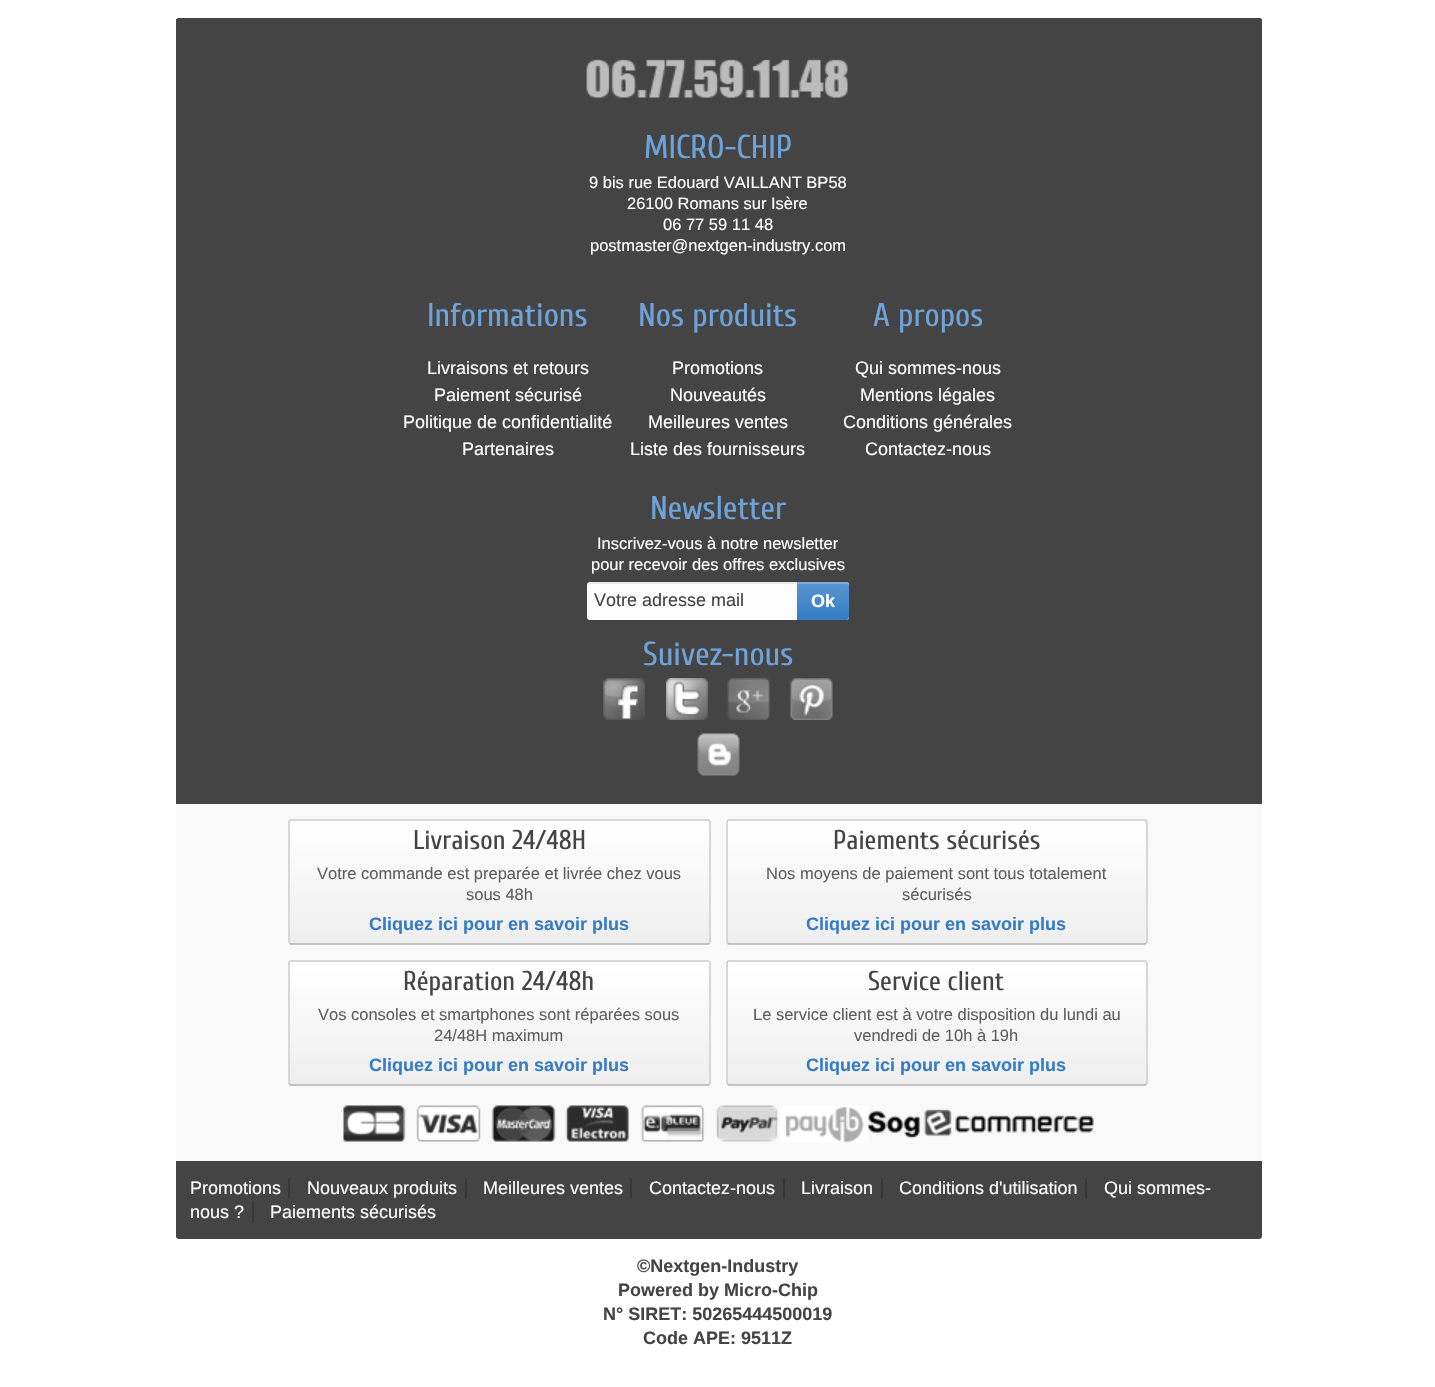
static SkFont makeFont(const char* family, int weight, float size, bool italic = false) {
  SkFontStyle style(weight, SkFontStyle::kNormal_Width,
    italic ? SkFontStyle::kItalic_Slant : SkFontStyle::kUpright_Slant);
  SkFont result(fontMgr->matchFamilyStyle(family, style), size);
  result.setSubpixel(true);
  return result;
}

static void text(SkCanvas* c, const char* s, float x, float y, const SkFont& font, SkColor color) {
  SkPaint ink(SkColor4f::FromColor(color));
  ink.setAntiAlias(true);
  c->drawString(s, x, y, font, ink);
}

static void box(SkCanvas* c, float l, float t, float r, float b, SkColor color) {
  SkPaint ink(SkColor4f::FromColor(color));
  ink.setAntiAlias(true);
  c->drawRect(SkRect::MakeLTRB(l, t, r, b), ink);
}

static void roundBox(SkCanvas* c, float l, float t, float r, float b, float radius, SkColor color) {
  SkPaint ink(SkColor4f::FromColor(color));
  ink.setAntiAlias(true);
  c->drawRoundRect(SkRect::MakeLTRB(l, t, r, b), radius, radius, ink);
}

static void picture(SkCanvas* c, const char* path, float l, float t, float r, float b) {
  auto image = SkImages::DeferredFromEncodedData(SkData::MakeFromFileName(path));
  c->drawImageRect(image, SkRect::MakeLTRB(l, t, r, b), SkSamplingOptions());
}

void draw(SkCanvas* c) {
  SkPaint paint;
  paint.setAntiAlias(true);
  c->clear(0xffffffff);
  roundBox(c, 176, 18, 1262, 1239, 3, 0xff444444);
  roundBox(c, 176, 18, 1262, 804, 3, 0xff444444);
  picture(c, "img_01.png", 586, 59, 848, 98);
  SkFont face1 = makeFont("Cuprum", 400, 33);
  text(c, "MICRO-CHIP", 644, 158, face1, 0xff6ea2d8);
  SkFont face2 = makeFont("Liberation Sans", 400, 16.5f);
  text(c, "9 bis rue Edouard VAILLANT BP58", 589, 188, face2, 0xffffffff);
  text(c, "26100 Romans sur Isère", 627, 209, face2, 0xffffffff);
  text(c, "06 77 59 11 48", 663, 230, face2, 0xffffffff);
  text(c, "postmaster@nextgen-industry.com", 590, 251, face2, 0xffffffff);
  text(c, "Informations", 427, 326, face1, 0xff6ea2d8);
  SkFont face3 = makeFont("Liberation Sans", 400, 18);
  text(c, "Livraisons et retours", 427, 374, face3, 0xffffffff);
  text(c, "Paiement sécurisé", 434, 401, face3, 0xffffffff);
  text(c, "Politique de confidentialité", 403, 428, face3, 0xffffffff);
  text(c, "Partenaires", 462, 455, face3, 0xffffffff);
  text(c, "Nos produits", 638, 326, face1, 0xff6ea2d8);
  text(c, "Promotions", 672, 374, face3, 0xffffffff);
  text(c, "Nouveautés", 670, 401, face3, 0xffffffff);
  text(c, "Meilleures ventes", 648, 428, face3, 0xffffffff);
  text(c, "Liste des fournisseurs", 630, 455, face3, 0xffffffff);
  text(c, "A propos", 873, 326, face1, 0xff6ea2d8);
  text(c, "Qui sommes-nous", 855, 374, face3, 0xffffffff);
  text(c, "Mentions légales", 860, 401, face3, 0xffffffff);
  text(c, "Conditions générales", 843, 428, face3, 0xffffffff);
  text(c, "Contactez-nous", 865, 455, face3, 0xffffffff);
  text(c, "Newsletter", 650, 519, face1, 0xff6ea2d8);
  text(c, "Inscrivez-vous à notre newsletter", 597, 549, face2, 0xffffffff);
  text(c, "pour recevoir des offres exclusives", 591, 570, face2, 0xffffffff);
  roundBox(c, 587, 582, 849, 620, 3, 0xfffcfcfc);
  paint.setColor(0x12000000);
  c->drawPath(SkPathBuilder().moveTo(590, 584).lineTo(846, 584).cubicTo(848, 584, 849, 585, 849, 586).lineTo(849, 585).cubicTo(849, 583, 848, 582, 846, 582).lineTo(590, 582).cubicTo(588, 582, 587, 583, 587, 585).close().detach(), paint);
  text(c, "Votre adresse mail", 594, 606, face3, 0xff444444);
  paint.setColor(0x0d000000);
  paint.setMaskFilter(SkMaskFilter::MakeBlur(kNormal_SkBlurStyle, 1.5f));
  c->drawRoundRect(SkRect::MakeLTRB(797, 584, 849, 621), 3, 3, paint);
  paint.setMaskFilter(nullptr);
  {
    const SkColor colors[] = {0xff5a96d2, 0xff357cc4};
    const float stops[] = {0, 1};
    const SkPoint ends[] = {{823, 582}, {823, 620}};
    paint.setShader(SkGradientShader::MakeLinear(ends, colors, stops, 2, SkTileMode::kClamp));
    paint.setAlpha(255);
  }
  c->drawPath(SkPathBuilder().moveTo(797, 582).lineTo(846, 582).cubicTo(847.5f, 582, 849, 583.5f, 849, 585).lineTo(849, 617).cubicTo(849, 618.5f, 847.5f, 620, 846, 620).lineTo(797, 620).close().detach(), paint);
  paint.setShader(nullptr);
  paint.setColor(0xff7babdb);
  c->drawPath(SkPathBuilder().moveTo(797, 582).lineTo(797, 584).lineTo(846, 584).cubicTo(848, 584, 849, 585, 849, 586).cubicTo(849, 584, 848, 582, 846, 582).close().detach(), paint);
  SkFont face4 = makeFont("Liberation Sans", 700, 18);
  text(c, "Ok", 811, 607, face4, 0xffffffff);
  text(c, "Suivez-nous", 643, 665, face1, 0xff6ea2d8);
  picture(c, "img_02.png", 603, 678, 645, 720);
  picture(c, "img_03.png", 666, 678, 708, 720);
  picture(c, "img_04.png", 727, 678, 770, 720);
  picture(c, "img_05.png", 790, 678, 833, 720);
  picture(c, "img_06.png", 697, 733, 740, 776);
  box(c, 176, 804, 1262, 1161, 0xfff9f9f9);
  {
    const SkColor colors[] = {0xffffffff, 0xffeeeeee};
    const float stops[] = {0, 1};
    const SkPoint ends[] = {{500, 821}, {500, 944}};
    paint.setShader(SkGradientShader::MakeLinear(ends, colors, stops, 2, SkTileMode::kClamp));
    paint.setAlpha(255);
  }
  c->drawRoundRect(SkRect::MakeLTRB(290, 821, 710, 944), 1.5f, 1.5f, paint);
  paint.setStyle(SkPaint::kStroke_Style);
  paint.setStrokeWidth(1.5f);
  paint.setShader(nullptr);
  paint.setColor(0xffb2b2b2);
  c->drawPath(SkPathBuilder().moveTo(709.5f, 943.5f).lineTo(708, 944).lineTo(291, 944).lineTo(289.5f, 943.5f).detach(), paint);
  paint.setColor(0xffcccccc);
  c->drawPath(SkPathBuilder().moveTo(289.5f, 943.5f).lineTo(289, 942).lineTo(289, 822).lineTo(289.5f, 820.5f).lineTo(291, 820).lineTo(708, 820).lineTo(709.5f, 820.5f).lineTo(710, 822).lineTo(710, 942).lineTo(709.5f, 943.5f).detach(), paint);
  SkFont face5 = makeFont("Cuprum", 400, 27);
  text(c, "Livraison 24/48H", 413, 849, face5, 0xff444444);
  text(c, "Votre commande est preparée et livrée chez vous", 317, 879, face2, 0xff5e5e5e);
  text(c, "sous 48h", 466, 900, face2, 0xff5e5e5e);
  text(c, "Cliquez ici pour en savoir plus", 369, 930, face4, 0xff357cc4);
  paint.setStyle(SkPaint::kFill_Style);
  {
    const SkColor colors[] = {0xffffffff, 0xffeeeeee};
    const float stops[] = {0, 1};
    const SkPoint ends[] = {{937, 821}, {937, 944}};
    paint.setShader(SkGradientShader::MakeLinear(ends, colors, stops, 2, SkTileMode::kClamp));
    paint.setAlpha(255);
  }
  c->drawRoundRect(SkRect::MakeLTRB(728, 821, 1146, 944), 1.5f, 1.5f, paint);
  paint.setStyle(SkPaint::kStroke_Style);
  paint.setShader(nullptr);
  paint.setColor(0xffb2b2b2);
  c->drawPath(SkPathBuilder().moveTo(1146, 943.5f).lineTo(1144.5f, 944).lineTo(729, 944).lineTo(727.5f, 943.5f).detach(), paint);
  paint.setColor(0xffcccccc);
  c->drawPath(SkPathBuilder().moveTo(727.5f, 943.5f).lineTo(727, 942).lineTo(727, 822).lineTo(727.5f, 820.5f).lineTo(729, 820).lineTo(1144.5f, 820).lineTo(1146, 820.5f).lineTo(1147, 822).lineTo(1147, 942).lineTo(1146, 943.5f).detach(), paint);
  text(c, "Paiements sécurisés", 833, 849, face5, 0xff444444);
  text(c, "Nos moyens de paiement sont tous totalement", 766, 879, face2, 0xff5e5e5e);
  text(c, "sécurisés", 902, 900, face2, 0xff5e5e5e);
  text(c, "Cliquez ici pour en savoir plus", 806, 930, face4, 0xff357cc4);
  paint.setStyle(SkPaint::kFill_Style);
  {
    const SkColor colors[] = {0xffffffff, 0xffeeeeee};
    const float stops[] = {0, 1};
    const SkPoint ends[] = {{500, 962}, {500, 1085}};
    paint.setShader(SkGradientShader::MakeLinear(ends, colors, stops, 2, SkTileMode::kClamp));
    paint.setAlpha(255);
  }
  c->drawRoundRect(SkRect::MakeLTRB(290, 962, 710, 1085), 1.5f, 1.5f, paint);
  paint.setStyle(SkPaint::kStroke_Style);
  paint.setShader(nullptr);
  paint.setColor(0xffb2b2b2);
  c->drawPath(SkPathBuilder().moveTo(709.5f, 1084.5f).lineTo(708, 1085).lineTo(291, 1085).lineTo(289.5f, 1084.5f).detach(), paint);
  paint.setColor(0xffcccccc);
  c->drawPath(SkPathBuilder().moveTo(289.5f, 1084.5f).lineTo(289, 1083).lineTo(289, 963).lineTo(289.5f, 961.5f).lineTo(291, 961).lineTo(708, 961).lineTo(709.5f, 961.5f).lineTo(710, 963).lineTo(710, 1083).lineTo(709.5f, 1084.5f).detach(), paint);
  text(c, "Réparation 24/48h", 403, 990, face5, 0xff444444);
  text(c, "Vos consoles et smartphones sont réparées sous", 318, 1020, face2, 0xff5e5e5e);
  text(c, "24/48H maximum", 434, 1041, face2, 0xff5e5e5e);
  text(c, "Cliquez ici pour en savoir plus", 369, 1071, face4, 0xff357cc4);
  paint.setStyle(SkPaint::kFill_Style);
  {
    const SkColor colors[] = {0xffffffff, 0xffeeeeee};
    const float stops[] = {0, 1};
    const SkPoint ends[] = {{937, 962}, {937, 1085}};
    paint.setShader(SkGradientShader::MakeLinear(ends, colors, stops, 2, SkTileMode::kClamp));
    paint.setAlpha(255);
  }
  c->drawRoundRect(SkRect::MakeLTRB(728, 962, 1146, 1085), 1.5f, 1.5f, paint);
  paint.setStyle(SkPaint::kStroke_Style);
  paint.setShader(nullptr);
  paint.setColor(0xffb2b2b2);
  c->drawPath(SkPathBuilder().moveTo(1146, 1084.5f).lineTo(1144.5f, 1085).lineTo(729, 1085).lineTo(727.5f, 1084.5f).detach(), paint);
  paint.setColor(0xffcccccc);
  c->drawPath(SkPathBuilder().moveTo(727.5f, 1084.5f).lineTo(727, 1083).lineTo(727, 963).lineTo(727.5f, 961.5f).lineTo(729, 961).lineTo(1144.5f, 961).lineTo(1146, 961.5f).lineTo(1147, 963).lineTo(1147, 1083).lineTo(1146, 1084.5f).detach(), paint);
  text(c, "Service client", 868, 990, face5, 0xff444444);
  text(c, "Le service client est à votre disposition du lundi au", 753, 1020, face2, 0xff5e5e5e);
  text(c, "vendredi de 10h à 19h", 854, 1041, face2, 0xff5e5e5e);
  text(c, "Cliquez ici pour en savoir plus", 806, 1071, face4, 0xff357cc4);
  picture(c, "img_07.png", 343, 1105, 1094, 1143);
  text(c, "Promotions", 190, 1194, face3, 0xffffffff);
  text(c, "Nouveaux produits", 307, 1194, face3, 0xffffffff);
  box(c, 288, 1178, 290, 1199, 0xff373737);
  text(c, "Meilleures ventes", 483, 1194, face3, 0xffffffff);
  box(c, 465, 1178, 467, 1199, 0xff373737);
  text(c, "Contactez-nous", 649, 1194, face3, 0xffffffff);
  box(c, 630, 1178, 632, 1199, 0xff373737);
  text(c, "Livraison", 801, 1194, face3, 0xffffffff);
  box(c, 783, 1178, 785, 1199, 0xff373737);
  text(c, "Conditions d'utilisation", 899, 1194, face3, 0xffffffff);
  box(c, 881, 1178, 883, 1199, 0xff373737);
  text(c, "Qui sommes-", 1104, 1194, face3, 0xffffffff);
  box(c, 1085, 1178, 1087, 1199, 0xff373737);
  text(c, "nous ?", 190, 1218, face3, 0xffffffff);
  text(c, "Paiements sécurisés", 270, 1218, face3, 0xffffffff);
  box(c, 252, 1202, 254, 1223, 0xff373737);
  text(c, "©Nextgen-Industry", 637, 1272, face4, 0xff444444);
  text(c, "Powered by Micro-Chip", 618, 1296, face4, 0xff444444);
  text(c, "N° SIRET: 50265444500019", 603, 1320, face4, 0xff444444);
  text(c, "Code APE: 9511Z", 643, 1344, face4, 0xff444444);
}
